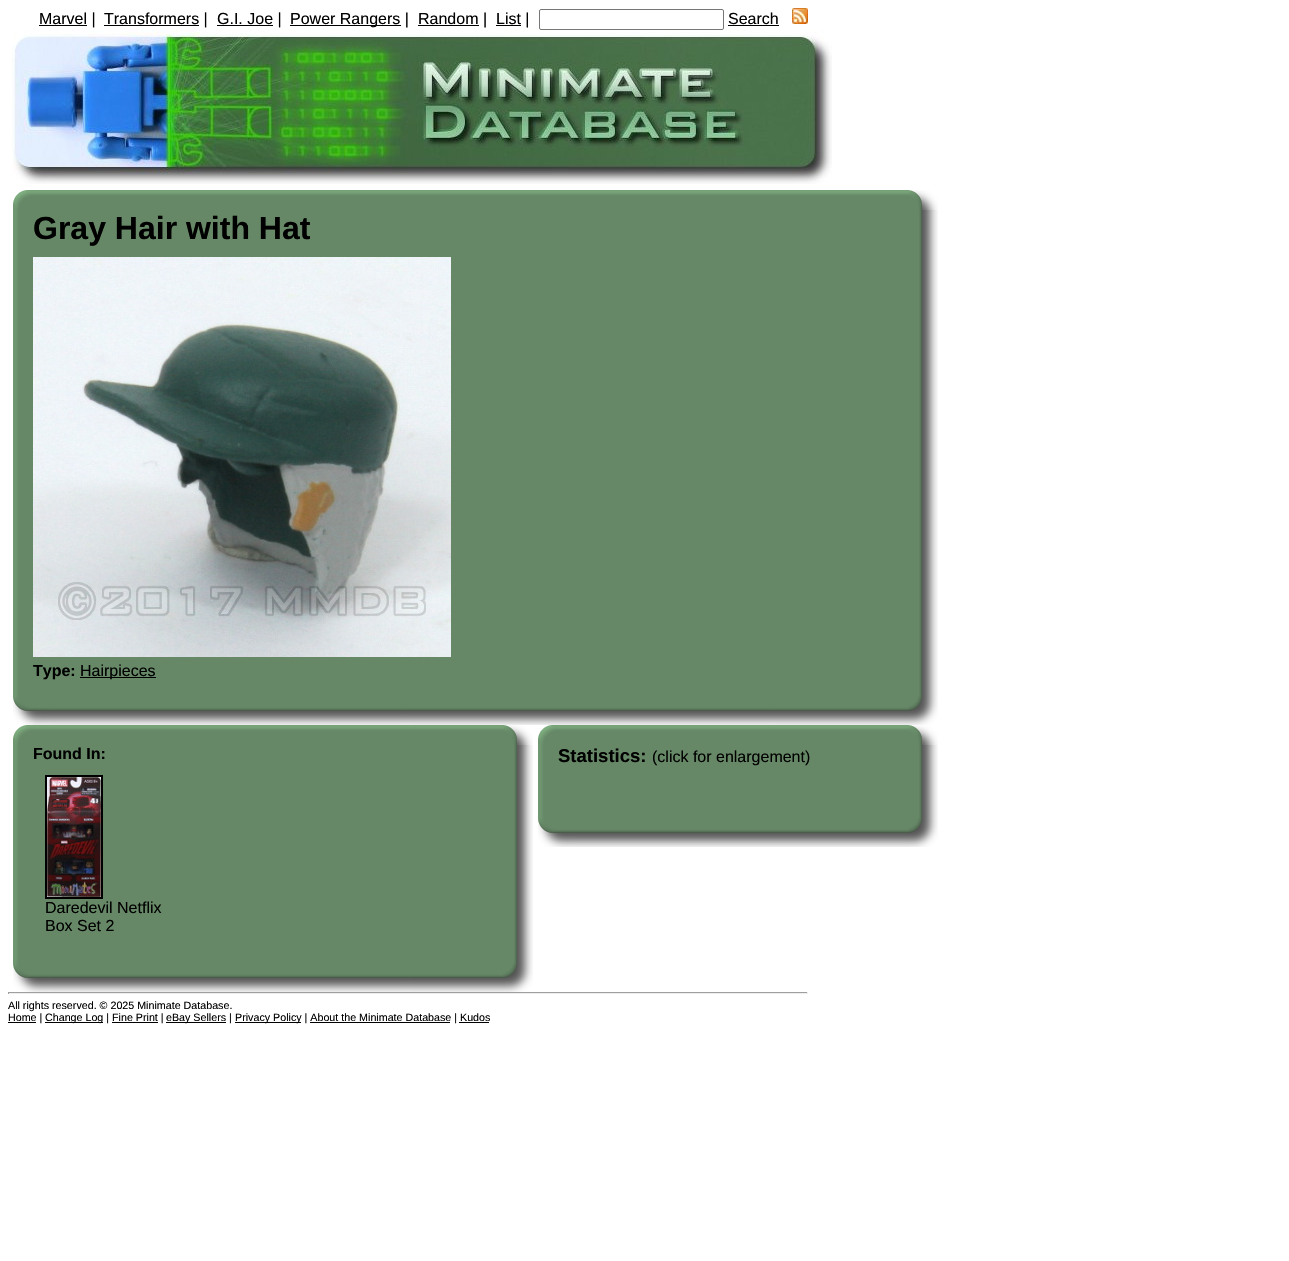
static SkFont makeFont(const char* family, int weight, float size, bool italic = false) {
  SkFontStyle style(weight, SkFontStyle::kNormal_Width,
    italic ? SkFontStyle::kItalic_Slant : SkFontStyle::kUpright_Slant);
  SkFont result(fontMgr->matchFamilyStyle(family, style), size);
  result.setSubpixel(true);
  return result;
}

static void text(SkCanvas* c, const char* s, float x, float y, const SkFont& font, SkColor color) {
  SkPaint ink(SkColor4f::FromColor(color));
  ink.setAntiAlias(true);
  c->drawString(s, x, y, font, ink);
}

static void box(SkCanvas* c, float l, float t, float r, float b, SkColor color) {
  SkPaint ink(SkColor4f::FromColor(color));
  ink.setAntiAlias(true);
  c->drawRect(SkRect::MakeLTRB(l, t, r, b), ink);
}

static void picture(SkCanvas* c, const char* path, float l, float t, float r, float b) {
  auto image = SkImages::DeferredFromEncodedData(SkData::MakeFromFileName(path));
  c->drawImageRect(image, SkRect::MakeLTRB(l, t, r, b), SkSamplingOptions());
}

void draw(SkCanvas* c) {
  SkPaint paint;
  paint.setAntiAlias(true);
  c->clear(0xffffffff);
  box(c, 39, 25, 87, 26, 0xff000000);
  SkFont face1 = makeFont("Liberation Sans", 400, 16);
  text(c, "Marvel |", 39, 24, face1, 0xff000000);
  box(c, 104, 25, 199, 26, 0xff000000);
  text(c, "Transformers |", 104, 24, face1, 0xff000000);
  box(c, 217, 25, 273, 26, 0xff000000);
  text(c, "G.I. Joe |", 217, 24, face1, 0xff000000);
  box(c, 290, 25, 401, 26, 0xff000000);
  text(c, "Power Rangers |", 290, 24, face1, 0xff000000);
  box(c, 418, 25, 479, 26, 0xff000000);
  text(c, "Random |", 418, 24, face1, 0xff000000);
  box(c, 496, 25, 521, 26, 0xff000000);
  text(c, "List |", 496, 24, face1, 0xff000000);
  paint.setStyle(SkPaint::kStroke_Style);
  paint.setStrokeWidth(1);
  paint.setColor(0xff767676);
  c->drawRoundRect(SkRect::MakeLTRB(539.5f, 9.5f, 723.5f, 29.5f), 1.5f, 1.5f, paint);
  text(c, "Search", 728, 24, face1, 0xff000000);
  box(c, 728, 25, 779, 26, 0xff000000);
  picture(c, "img_01.png", 792, 8, 808, 24);
  picture(c, "img_02.png", 12, 30, 832, 184);
  picture(c, "img_03.png", 13, 190, 908, 210);
  picture(c, "img_04.png", 908, 190, 938, 210);
  picture(c, "img_05.png", 13, 210, 919, 696);
  picture(c, "img_06.png", 919, 210, 938, 696);
  SkFont face2 = makeFont("Liberation Sans", 700, 32);
  text(c, "Gray Hair with Hat", 33, 239, face2, 0xff000000);
  picture(c, "img_07.png", 33, 257, 451, 657);
  SkFont face3 = makeFont("Liberation Sans", 700, 16);
  text(c, "Type:", 33, 676, face3, 0xff000000);
  box(c, 80, 677, 156, 678, 0xff000000);
  text(c, "Hairpieces", 80, 676, face1, 0xff000000);
  picture(c, "img_08.png", 13, 696, 908, 725);
  picture(c, "img_09.png", 908, 696, 938, 725);
  picture(c, "img_10.png", 13, 725, 503, 745);
  picture(c, "img_04.png", 503, 725, 533, 745);
  picture(c, "img_11.png", 13, 745, 514, 963);
  picture(c, "img_12.png", 514, 745, 533, 963);
  text(c, "Found In:", 33, 759, face3, 0xff000000);
  paint.setStrokeWidth(2);
  paint.setColor(0xff000000);
  c->drawRect(SkRect::MakeLTRB(46, 776, 102, 898), paint);
  picture(c, "img_13.png", 47, 777, 101, 897);
  text(c, "Daredevil Netflix", 45, 913, face1, 0xff000000);
  text(c, "Box Set 2", 45, 931, face1, 0xff000000);
  picture(c, "img_14.png", 13, 963, 503, 992);
  picture(c, "img_09.png", 503, 963, 533, 992);
  picture(c, "img_15.png", 538, 725, 908, 745);
  picture(c, "img_04.png", 908, 725, 938, 745);
  picture(c, "img_16.png", 538, 745, 919, 818);
  picture(c, "img_17.png", 919, 745, 938, 818);
  SkFont face4 = makeFont("Liberation Sans", 700, 18.5f);
  text(c, "Statistics:", 558, 762, face4, 0xff000000);
  text(c, "(click for enlargement)", 652, 762, face1, 0xff000000);
  picture(c, "img_18.png", 538, 818, 908, 847);
  picture(c, "img_09.png", 908, 818, 938, 847);
  box(c, 8, 992, 808, 993, 0xff9f9f9f);
  box(c, 807, 992, 808, 994, 0xffeeeeee);
  box(c, 8, 993, 808, 994, 0xffeeeeee);
  box(c, 8, 992, 9, 994, 0xff9f9f9f);
  SkFont face5 = makeFont("Liberation Sans", 400, 10.7f);
  text(c, "All rights reserved. © 2025 Minimate Database.", 8, 1009, face5, 0xff000000);
  box(c, 8, 1022, 36, 1023, 0xff000000);
  text(c, "Home |", 8, 1021, face5, 0xff000000);
  box(c, 45, 1022, 103, 1023, 0xff000000);
  text(c, "Change Log | Fine Print |", 45, 1021, face5, 0xff000000);
  box(c, 166, 1022, 226, 1023, 0xff000000);
  text(c, "eBay Sellers |", 166, 1021, face5, 0xff000000);
  box(c, 235, 1022, 301, 1023, 0xff000000);
  text(c, "Privacy Policy | About the Minimate Database | Kudos", 235, 1021, face5, 0xff000000);
  box(c, 112, 1022, 158, 1023, 0xff000000);
  box(c, 310, 1022, 450, 1023, 0xff000000);
  box(c, 459, 1022, 489, 1023, 0xff000000);
}
